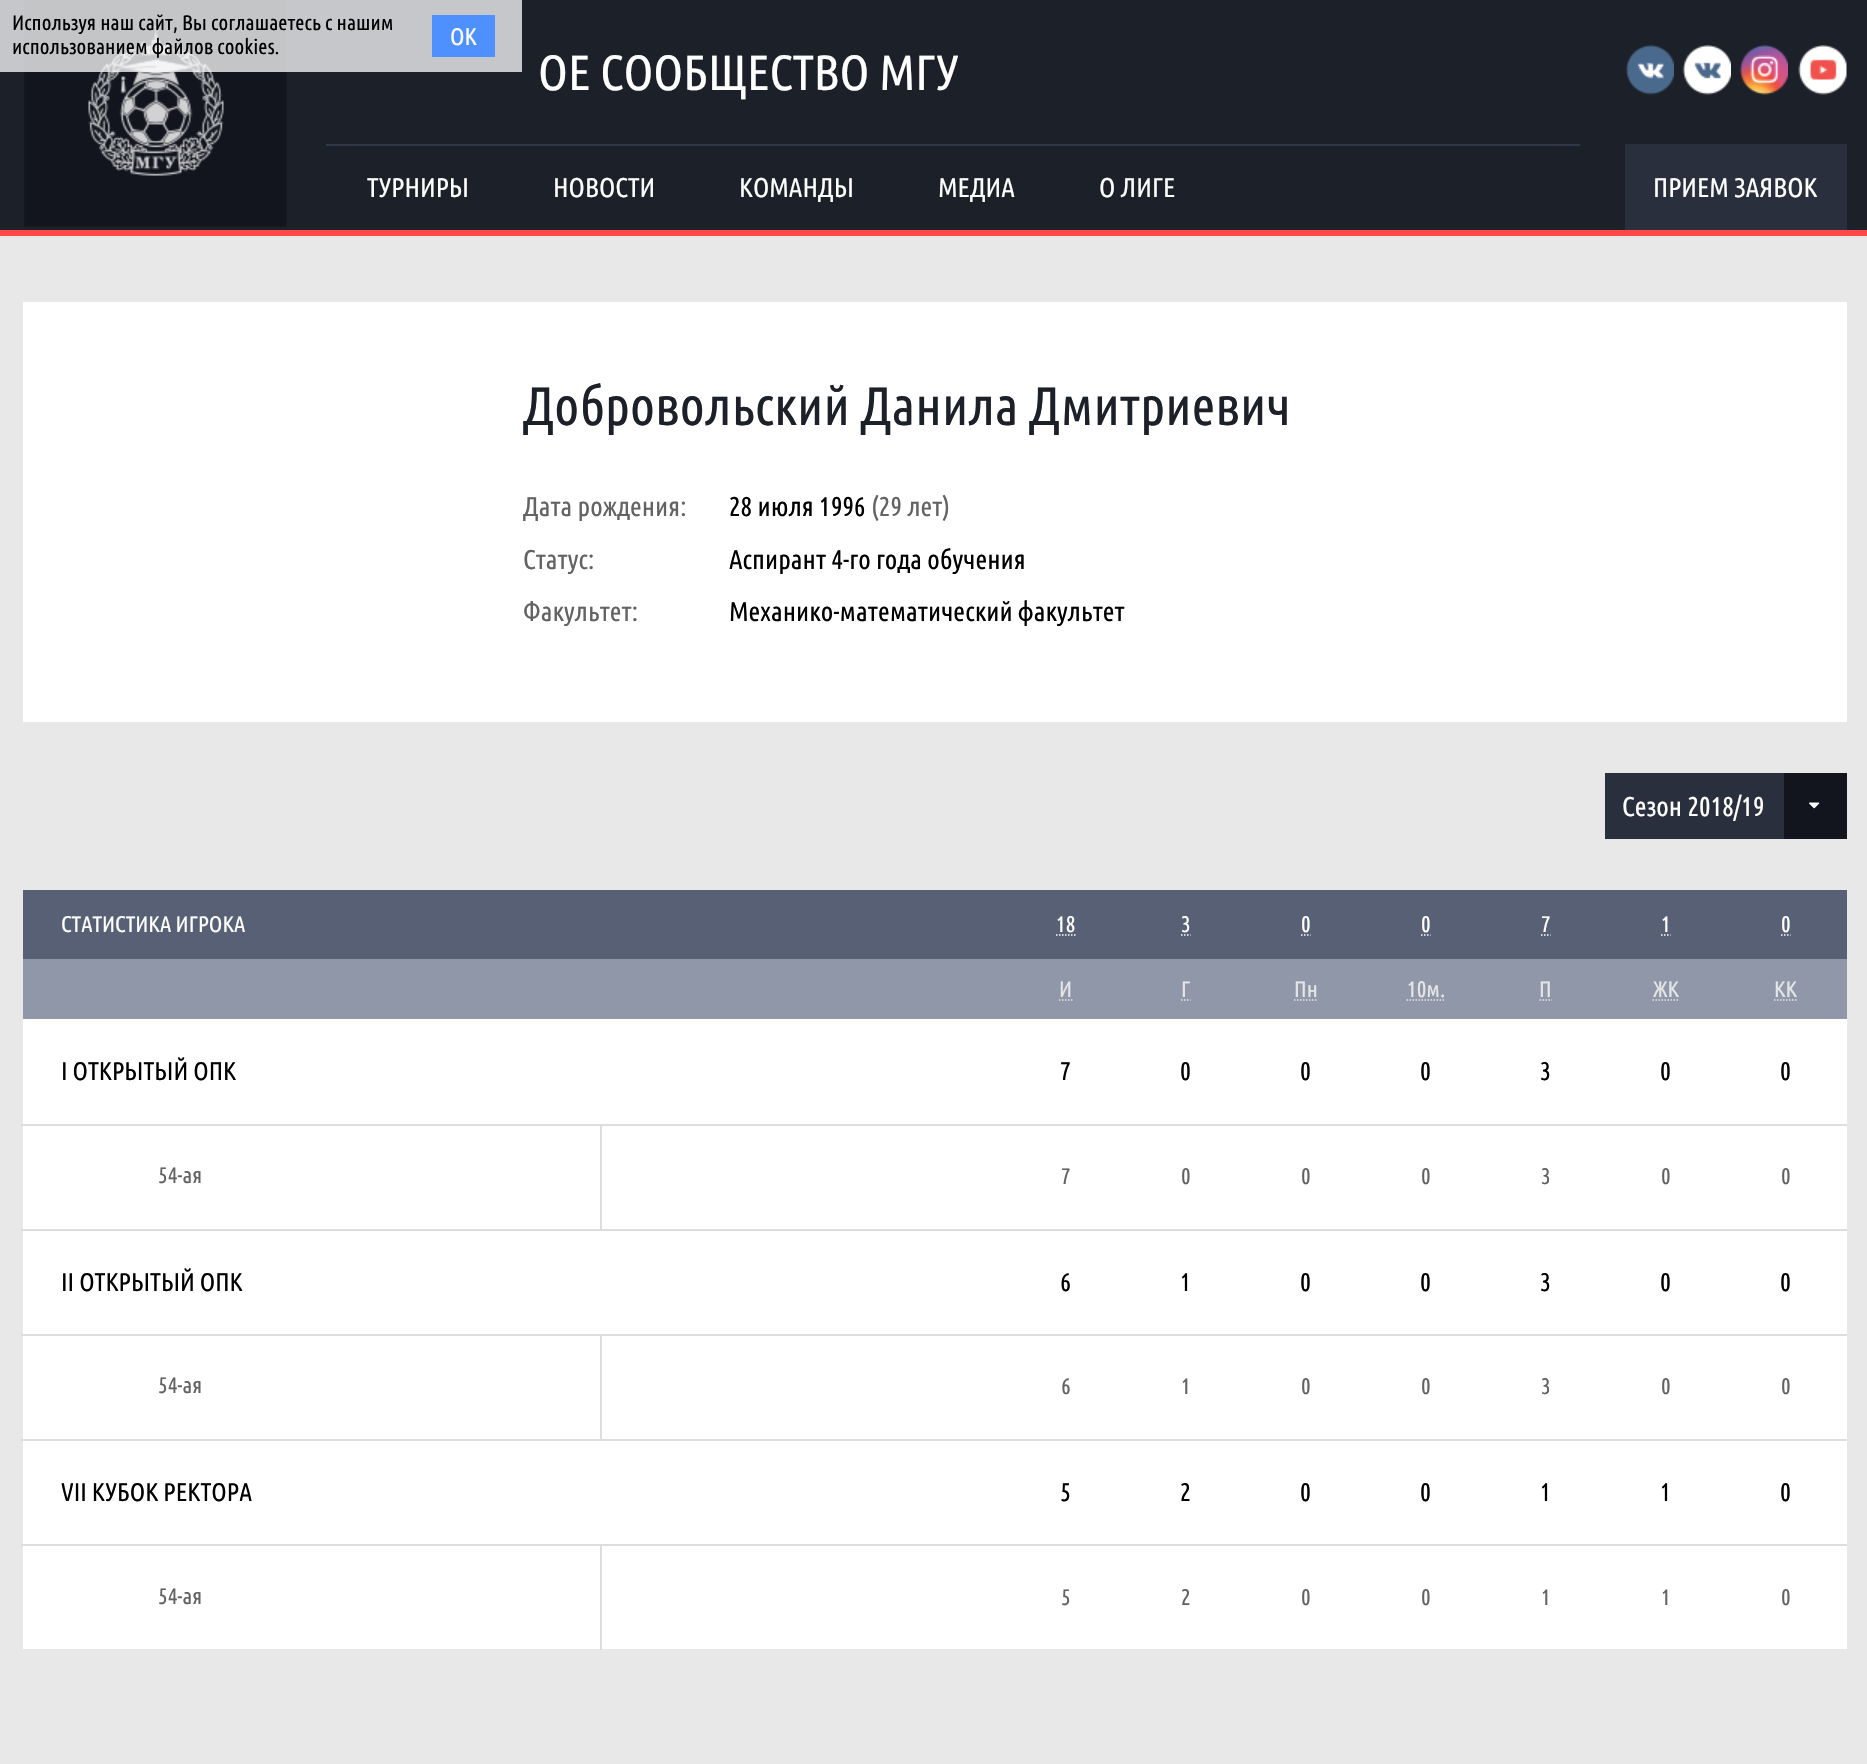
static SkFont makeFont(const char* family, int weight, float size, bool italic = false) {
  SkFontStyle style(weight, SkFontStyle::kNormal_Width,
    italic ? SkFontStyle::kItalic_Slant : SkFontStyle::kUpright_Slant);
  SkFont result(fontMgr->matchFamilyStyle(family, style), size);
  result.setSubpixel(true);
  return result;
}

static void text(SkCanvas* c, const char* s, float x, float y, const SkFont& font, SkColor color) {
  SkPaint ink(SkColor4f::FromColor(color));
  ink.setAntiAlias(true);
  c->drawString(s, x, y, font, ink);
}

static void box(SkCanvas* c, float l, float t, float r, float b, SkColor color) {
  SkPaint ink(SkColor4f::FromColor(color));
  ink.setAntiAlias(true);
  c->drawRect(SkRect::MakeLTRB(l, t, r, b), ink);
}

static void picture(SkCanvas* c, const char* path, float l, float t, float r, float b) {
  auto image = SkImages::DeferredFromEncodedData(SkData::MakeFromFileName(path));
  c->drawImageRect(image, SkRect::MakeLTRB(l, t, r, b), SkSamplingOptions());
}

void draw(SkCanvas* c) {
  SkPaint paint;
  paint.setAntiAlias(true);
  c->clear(0xffe8e8e8);
  box(c, 0, 0, 1867, 230, 0xff1c2029);
  picture(c, "img_01.png", 24, 0, 287, 227);
  box(c, 0, 0, 522, 72, 0xbfffffff);
  SkFont face1 = makeFont("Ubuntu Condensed", 400, 21);
  text(c, "Используя наш сайт, Вы соглашаетесь с нашим", 12, 30, face1, 0xff000000);
  text(c, "использованием файлов cookies.", 12, 54, face1, 0xff000000);
  box(c, 432, 15, 495, 57, 0xff4d90fe);
  SkFont face2 = makeFont("Ubuntu Condensed", 400, 24);
  text(c, "ОК", 450, 45, face2, 0xffffffff);
  box(c, 0, 230, 1867, 236, 0xffff4847);
  SkFont face3 = makeFont("Ubuntu Condensed", 400, 49.5f);
  text(c, "ОЕ СООБЩЕСТВО МГУ", 538, 90, face3, 0xffffffff);
  box(c, 326, 144, 1580, 146, 0xff2e374a);
  SkFont face4 = makeFont("Ubuntu Condensed", 400, 27);
  text(c, "ТУРНИРЫ", 367, 197, face4, 0xffffffff);
  text(c, "НОВОСТИ", 553, 197, face4, 0xffffffff);
  text(c, "КОМАНДЫ", 739, 197, face4, 0xffffffff);
  text(c, "МЕДИА", 938, 197, face4, 0xffffffff);
  text(c, "О ЛИГЕ", 1099, 197, face4, 0xffffffff);
  picture(c, "img_02.png", 1625, 45, 1674, 95);
  picture(c, "img_03.png", 1682, 45, 1731, 95);
  picture(c, "img_04.png", 1739, 45, 1788, 95);
  picture(c, "img_05.png", 1798, 45, 1847, 95);
  box(c, 1625, 144, 1847, 230, 0xff292f3c);
  text(c, "ПРИЕМ ЗАЯВОК", 1653, 197, face4, 0xffffffff);
  box(c, 23, 302, 1847, 722, 0xffffffff);
  SkFont face5 = makeFont("Ubuntu Condensed", 400, 54);
  text(c, "Добровольский Данила Дмитриевич", 523, 425, face5, 0xff1c2029);
  text(c, "Дата рождения:", 523, 516, face4, 0xff636363);
  text(c, "28 июля 1996", 729, 516, face4, 0xff000000);
  text(c, "(29 лет)", 871, 516, face4, 0xff636363);
  text(c, "Статус:", 523, 569, face4, 0xff636363);
  text(c, "Аспирант 4-го года обучения", 729, 569, face4, 0xff000000);
  text(c, "Факультет:", 523, 621, face4, 0xff636363);
  text(c, "Механико-математический факультет", 729, 621, face4, 0xff000000);
  box(c, 1605, 773, 1784, 839, 0xff292f3c);
  text(c, "Сезон 2018/19", 1622, 816, face4, 0xffffffff);
  box(c, 1784, 773, 1847, 839, 0xff12151d);
  picture(c, "img_06.png", 1809, 802, 1820, 809);
  box(c, 23, 1019, 1847, 1649, 0xffffffff);
  box(c, 23, 890, 1847, 959, 0xff576075);
  SkFont face6 = makeFont("Ubuntu Condensed", 400, 22.5f);
  text(c, "СТАТИСТИКА ИГРОКА", 61, 932, face6, 0xffffffff);
  text(c, "18", 1056, 932, face6, 0xffffffff);
  paint.setStyle(SkPaint::kStroke_Style);
  paint.setStrokeWidth(1.5f);
  paint.setColor(0xffffffff);
  paint.setPathEffect(SkDashPathEffect::Make({{1.5f, 1.5f}}, 0));
  c->drawPath(SkPathBuilder().moveTo(1056, 935).lineTo(1075.5f, 935).detach(), paint);
  paint.setPathEffect(nullptr);
  text(c, "3", 1181, 932, face6, 0xffffffff);
  c->drawPath(SkPathBuilder().moveTo(1181, 935).lineTo(1182.5f, 935).moveTo(1184, 935).lineTo(1185.5f, 935).moveTo(1187, 935).lineTo(1188.5f, 935).moveTo(1190, 935).lineTo(1190.5f, 935).detach(), paint);
  text(c, "0", 1301, 932, face6, 0xffffffff);
  c->drawPath(SkPathBuilder().moveTo(1301, 935).lineTo(1302.5f, 935).moveTo(1304, 935).lineTo(1305.5f, 935).moveTo(1307, 935).lineTo(1308.5f, 935).moveTo(1310, 935).lineTo(1310.5f, 935).detach(), paint);
  text(c, "0", 1421, 932, face6, 0xffffffff);
  c->drawPath(SkPathBuilder().moveTo(1421, 935).lineTo(1422.5f, 935).moveTo(1424, 935).lineTo(1425.5f, 935).moveTo(1427, 935).lineTo(1428.5f, 935).moveTo(1430, 935).lineTo(1430.5f, 935).detach(), paint);
  text(c, "7", 1541, 932, face6, 0xffffffff);
  c->drawPath(SkPathBuilder().moveTo(1541, 935).lineTo(1542.5f, 935).moveTo(1544, 935).lineTo(1545.5f, 935).moveTo(1547, 935).lineTo(1548.5f, 935).moveTo(1550, 935).lineTo(1550.5f, 935).detach(), paint);
  text(c, "1", 1661, 932, face6, 0xffffffff);
  c->drawPath(SkPathBuilder().moveTo(1661, 935).lineTo(1662.5f, 935).moveTo(1664, 935).lineTo(1665.5f, 935).moveTo(1667, 935).lineTo(1668.5f, 935).moveTo(1670, 935).lineTo(1670.5f, 935).detach(), paint);
  text(c, "0", 1781, 932, face6, 0xffffffff);
  c->drawPath(SkPathBuilder().moveTo(1781, 935).lineTo(1782.5f, 935).moveTo(1784, 935).lineTo(1785.5f, 935).moveTo(1787, 935).lineTo(1788.5f, 935).moveTo(1790, 935).lineTo(1790.5f, 935).detach(), paint);
  box(c, 23, 959, 1847, 1019, 0xff9097a8);
  text(c, "И", 1059, 997, face6, 0xffe5e5e5);
  paint.setColor(0xffe5e5e5);
  paint.setPathEffect(SkDashPathEffect::Make({{1.5f, 1.5f}}, 0));
  c->drawPath(SkPathBuilder().moveTo(1059, 1000).lineTo(1072.5f, 1000).detach(), paint);
  paint.setPathEffect(nullptr);
  text(c, "Г", 1181, 997, face6, 0xffe5e5e5);
  c->drawPath(SkPathBuilder().moveTo(1181, 1000).lineTo(1182.5f, 1000).moveTo(1184, 1000).lineTo(1185.5f, 1000).moveTo(1187, 1000).lineTo(1188.5f, 1000).moveTo(1190, 1000).lineTo(1190.5f, 1000).detach(), paint);
  text(c, "Пн", 1294, 997, face6, 0xffe5e5e5);
  paint.setPathEffect(SkDashPathEffect::Make({{1.5f, 1.5f}}, 0));
  c->drawPath(SkPathBuilder().moveTo(1294, 1000).lineTo(1317.5f, 1000).detach(), paint);
  paint.setPathEffect(nullptr);
  text(c, "10м.", 1407, 997, face6, 0xffe5e5e5);
  paint.setPathEffect(SkDashPathEffect::Make({{1.5f, 1.5f}}, 0));
  c->drawPath(SkPathBuilder().moveTo(1406.5f, 1000).lineTo(1445, 1000).detach(), paint);
  paint.setPathEffect(nullptr);
  text(c, "П", 1539, 997, face6, 0xffe5e5e5);
  paint.setPathEffect(SkDashPathEffect::Make({{1.5f, 1.5f}}, 0));
  c->drawPath(SkPathBuilder().moveTo(1539.5f, 1000).lineTo(1552, 1000).detach(), paint);
  paint.setPathEffect(nullptr);
  text(c, "ЖК", 1653, 997, face6, 0xffe5e5e5);
  paint.setPathEffect(SkDashPathEffect::Make({{1.5f, 1.5f}}, 0));
  c->drawPath(SkPathBuilder().moveTo(1652.5f, 1000).lineTo(1679, 1000).detach(), paint);
  paint.setPathEffect(nullptr);
  text(c, "КК", 1774, 997, face6, 0xffe5e5e5);
  paint.setPathEffect(SkDashPathEffect::Make({{1.5f, 1.5f}}, 0));
  c->drawPath(SkPathBuilder().moveTo(1774, 1000).lineTo(1797.5f, 1000).detach(), paint);
  paint.setPathEffect(nullptr);
  box(c, 21, 1124, 1847, 1126, 0xffdddddd);
  SkFont face7 = makeFont("Ubuntu Condensed", 400, 25.5f);
  text(c, "I ОТКРЫТЫЙ ОПК", 61, 1080, face7, 0xff000000);
  text(c, "7", 1060, 1080, face7, 0xff000000);
  text(c, "0", 1180, 1080, face7, 0xff000000);
  text(c, "0", 1300, 1080, face7, 0xff000000);
  text(c, "0", 1420, 1080, face7, 0xff000000);
  text(c, "3", 1540, 1080, face7, 0xff000000);
  text(c, "0", 1660, 1080, face7, 0xff000000);
  text(c, "0", 1780, 1080, face7, 0xff000000);
  box(c, 21, 1229, 1847, 1231, 0xffdddddd);
  box(c, 600, 1124, 602, 1230, 0xffdddddd);
  text(c, "54-ая", 158, 1183, face6, 0xff636363);
  text(c, "7", 1061, 1184, face6, 0xff636363);
  text(c, "0", 1181, 1184, face6, 0xff636363);
  text(c, "0", 1301, 1184, face6, 0xff636363);
  text(c, "0", 1421, 1184, face6, 0xff636363);
  text(c, "3", 1541, 1184, face6, 0xff636363);
  text(c, "0", 1661, 1184, face6, 0xff636363);
  text(c, "0", 1781, 1184, face6, 0xff636363);
  box(c, 21, 1334, 1847, 1336, 0xffdddddd);
  text(c, "II ОТКРЫТЫЙ ОПК", 61, 1291, face7, 0xff000000);
  text(c, "6", 1060, 1291, face7, 0xff000000);
  text(c, "1", 1180, 1291, face7, 0xff000000);
  text(c, "0", 1300, 1291, face7, 0xff000000);
  text(c, "0", 1420, 1291, face7, 0xff000000);
  text(c, "3", 1540, 1291, face7, 0xff000000);
  text(c, "0", 1660, 1291, face7, 0xff000000);
  text(c, "0", 1780, 1291, face7, 0xff000000);
  box(c, 21, 1439, 1847, 1441, 0xffdddddd);
  box(c, 600, 1334, 602, 1440, 0xffdddddd);
  text(c, "54-ая", 158, 1393, face6, 0xff636363);
  text(c, "6", 1061, 1394, face6, 0xff636363);
  text(c, "1", 1181, 1394, face6, 0xff636363);
  text(c, "0", 1301, 1394, face6, 0xff636363);
  text(c, "0", 1421, 1394, face6, 0xff636363);
  text(c, "3", 1541, 1394, face6, 0xff636363);
  text(c, "0", 1661, 1394, face6, 0xff636363);
  text(c, "0", 1781, 1394, face6, 0xff636363);
  box(c, 21, 1544, 1847, 1546, 0xffdddddd);
  text(c, "VII КУБОК РЕКТОРА", 61, 1501, face7, 0xff000000);
  text(c, "5", 1060, 1501, face7, 0xff000000);
  text(c, "2", 1180, 1501, face7, 0xff000000);
  text(c, "0", 1300, 1501, face7, 0xff000000);
  text(c, "0", 1420, 1501, face7, 0xff000000);
  text(c, "1", 1540, 1501, face7, 0xff000000);
  text(c, "1", 1660, 1501, face7, 0xff000000);
  text(c, "0", 1780, 1501, face7, 0xff000000);
  box(c, 600, 1544, 602, 1650, 0xffdddddd);
  text(c, "54-ая", 158, 1604, face6, 0xff636363);
  text(c, "5", 1061, 1605, face6, 0xff636363);
  text(c, "2", 1181, 1605, face6, 0xff636363);
  text(c, "0", 1301, 1605, face6, 0xff636363);
  text(c, "0", 1421, 1605, face6, 0xff636363);
  text(c, "1", 1541, 1605, face6, 0xff636363);
  text(c, "1", 1661, 1605, face6, 0xff636363);
  text(c, "0", 1781, 1605, face6, 0xff636363);
}
